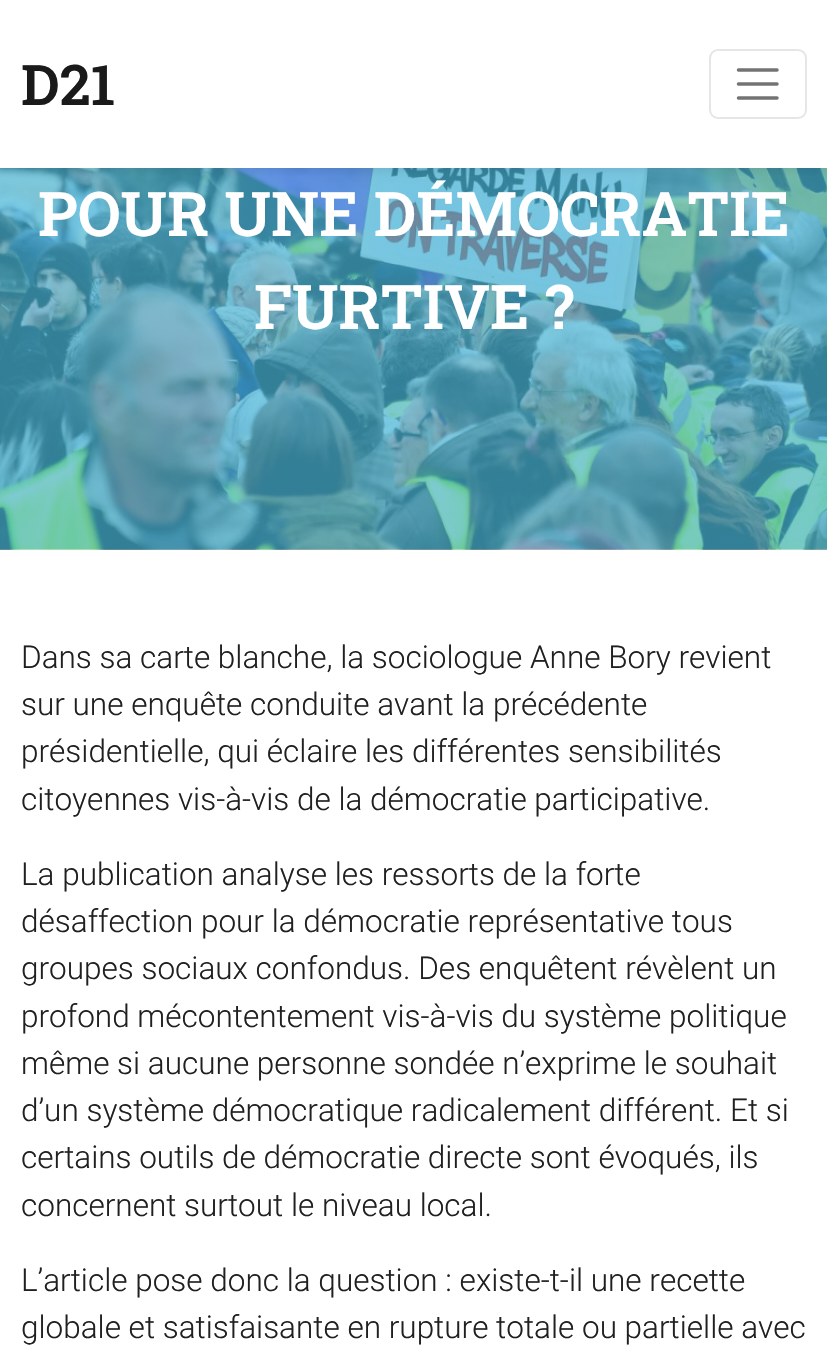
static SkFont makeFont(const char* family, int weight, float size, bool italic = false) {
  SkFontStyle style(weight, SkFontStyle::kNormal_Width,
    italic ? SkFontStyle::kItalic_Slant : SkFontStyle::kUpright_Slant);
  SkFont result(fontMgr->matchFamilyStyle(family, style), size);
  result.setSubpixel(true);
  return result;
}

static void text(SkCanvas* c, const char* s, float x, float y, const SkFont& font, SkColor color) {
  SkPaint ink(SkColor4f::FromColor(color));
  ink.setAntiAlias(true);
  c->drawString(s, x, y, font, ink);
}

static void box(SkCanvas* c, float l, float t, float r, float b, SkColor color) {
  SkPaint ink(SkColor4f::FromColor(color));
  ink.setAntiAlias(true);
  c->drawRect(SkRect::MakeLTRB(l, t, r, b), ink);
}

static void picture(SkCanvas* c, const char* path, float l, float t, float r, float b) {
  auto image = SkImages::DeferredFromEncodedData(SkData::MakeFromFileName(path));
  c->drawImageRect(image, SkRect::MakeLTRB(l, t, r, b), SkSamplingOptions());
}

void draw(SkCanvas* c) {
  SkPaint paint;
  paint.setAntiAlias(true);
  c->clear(0xffffffff);
  box(c, 0, 549, 827, 550, 0xffe9ecef);
  picture(c, "img_01.png", 0, 168, 827, 550);
  paint.setColor(0x12000000);
  paint.setMaskFilter(SkMaskFilter::MakeBlur(kNormal_SkBlurStyle, 3.5f));
  c->drawRect(SkRect::MakeLTRB(0, 4, 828, 172), paint);
  paint.setMaskFilter(nullptr);
  box(c, 0, 0, 827, 168, 0xffffffff);
  SkFont face1 = makeFont("Roboto Slab", 600, 56);
  text(c, "D21", 21, 105, face1, 0xff1a1a1a);
  paint.setStyle(SkPaint::kStroke_Style);
  paint.setStrokeWidth(2);
  paint.setColor(0xffe6e6e6);
  c->drawRoundRect(SkRect::MakeLTRB(710, 50, 806, 118), 8, 8, paint);
  paint.setStrokeWidth(3.5f);
  paint.setStrokeCap(SkPaint::kRound_Cap);
  paint.setColor(0xff737373);
  c->drawPath(SkPathBuilder().moveTo(738.5f, 70).lineTo(777, 70).moveTo(738.5f, 84).lineTo(777, 84).moveTo(738.5f, 98).lineTo(777, 98).detach(), paint);
  SkFont face2 = makeFont("Roboto Slab", 600, 61.6f);
  text(c, "POUR UNE DÉMOCRATIE", 38, 236, face2, 0xffffffff);
  text(c, "FURTIVE ?", 254, 329, face2, 0xffffffff);
  SkFont face3 = makeFont("Roboto", 300, 31.5f);
  text(c, "Dans sa carte blanche, la sociologue Anne Bory revient", 21, 668, face3, 0xff202020);
  text(c, "sur une enquête conduite avant la précédente", 21, 715, face3, 0xff202020);
  text(c, "présidentielle, qui éclaire les différentes sensibilités", 21, 762, face3, 0xff202020);
  text(c, "citoyennes vis-à-vis de la démocratie participative.", 21, 810, face3, 0xff202020);
  text(c, "La publication analyse les ressorts de la forte", 21, 885, face3, 0xff202020);
  text(c, "désaffection pour la démocratie représentative tous", 21, 932, face3, 0xff202020);
  text(c, "groupes sociaux confondus. Des enquêtent révèlent un", 21, 979, face3, 0xff202020);
  text(c, "profond mécontentement vis-à-vis du système politique", 21, 1027, face3, 0xff202020);
  text(c, "même si aucune personne sondée n’exprime le souhait", 21, 1074, face3, 0xff202020);
  text(c, "d’un système démocratique radicalement différent. Et si", 21, 1121, face3, 0xff202020);
  text(c, "certains outils de démocratie directe sont évoqués, ils", 21, 1168, face3, 0xff202020);
  text(c, "concernent surtout le niveau local.", 21, 1216, face3, 0xff202020);
  text(c, "L’article pose donc la question : existe-t-il une recette", 21, 1291, face3, 0xff202020);
  text(c, "globale et satisfaisante en rupture totale ou partielle avec", 21, 1338, face3, 0xff202020);
}
